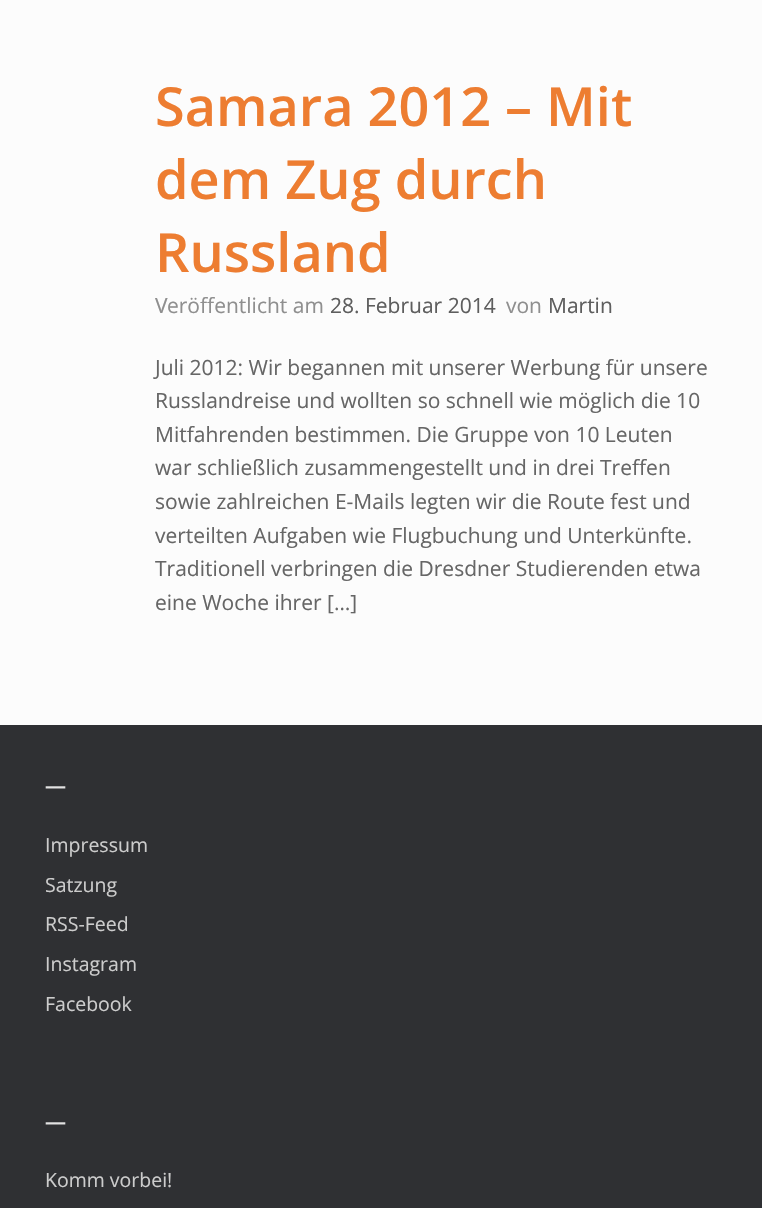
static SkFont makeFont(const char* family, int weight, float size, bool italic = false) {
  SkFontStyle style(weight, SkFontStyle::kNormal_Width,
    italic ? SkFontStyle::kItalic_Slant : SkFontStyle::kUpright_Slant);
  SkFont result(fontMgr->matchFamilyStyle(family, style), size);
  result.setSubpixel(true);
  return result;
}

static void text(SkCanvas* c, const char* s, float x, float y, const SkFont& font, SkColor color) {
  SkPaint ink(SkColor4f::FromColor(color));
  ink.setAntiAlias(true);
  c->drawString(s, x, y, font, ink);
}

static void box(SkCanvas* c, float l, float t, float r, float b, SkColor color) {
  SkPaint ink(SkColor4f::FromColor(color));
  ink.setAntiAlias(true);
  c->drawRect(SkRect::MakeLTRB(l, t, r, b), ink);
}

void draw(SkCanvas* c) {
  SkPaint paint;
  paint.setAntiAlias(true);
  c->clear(0xff2f3033);
  box(c, 0, 0, 762, 725, 0xfffcfcfc);
  SkFont face1 = makeFont("Open Sans", 600, 54);
  text(c, "Samara 2012 – Mit", 155, 126, face1, 0xffed7d31);
  text(c, "dem Zug durch", 155, 199, face1, 0xffed7d31);
  text(c, "Russland", 155, 272, face1, 0xffed7d31);
  SkFont face2 = makeFont("Noto Sans", 400, 21);
  text(c, "V", 155, 313, face2, 0xff8f8f8f);
  SkFont face3 = makeFont("Open Sans", 400, 21);
  text(c, "eröffentlicht am", 167, 313, face3, 0xff8f8f8f);
  text(c, "28. Februar 2014", 330, 313, face3, 0xff5e5e5e);
  text(c, "von", 506, 313, face3, 0xff8f8f8f);
  text(c, "Martin", 548, 313, face3, 0xff5e5e5e);
  text(c, "Juli 2012: Wir begannen mit unserer Werbung für unsere", 155, 375, face3, 0xff666666);
  text(c, "Russlandreise und wollten so schnell wie möglich die 10", 155, 408, face3, 0xff666666);
  text(c, "Mitfahrenden bestimmen. Die Gruppe von 10 Leuten", 155, 442, face3, 0xff666666);
  text(c, "war schließlich zusammengestellt und in drei Treffen", 155, 475, face3, 0xff666666);
  text(c, "sowie zahlreichen E-Mails legten wir die Route fest und", 155, 509, face3, 0xff666666);
  text(c, "verteilten Aufgaben wie Flugbuchung und Unterkünfte.", 155, 543, face3, 0xff666666);
  text(c, "Traditionell verbringen die Dresdner Studierenden etwa", 155, 576, face3, 0xff666666);
  text(c, "eine Woche ihrer […]", 155, 610, face3, 0xff666666);
  SkFont face4 = makeFont("Open Sans", 600, 21);
  text(c, "—", 45, 793, face4, 0xffe2e2e2);
  SkFont face5 = makeFont("Open Sans", 400, 19.5f);
  text(c, "Impressum", 45, 852, face5, 0xffcccccc);
  text(c, "Satzung", 45, 892, face5, 0xffcccccc);
  text(c, "RSS-Feed", 45, 931, face5, 0xffcccccc);
  text(c, "Instagram", 45, 971, face5, 0xffcccccc);
  text(c, "Facebook", 45, 1011, face5, 0xffcccccc);
  text(c, "—", 45, 1129, face4, 0xffe2e2e2);
  text(c, "Komm vorbei!", 45, 1187, face5, 0xffcccccc);
}
